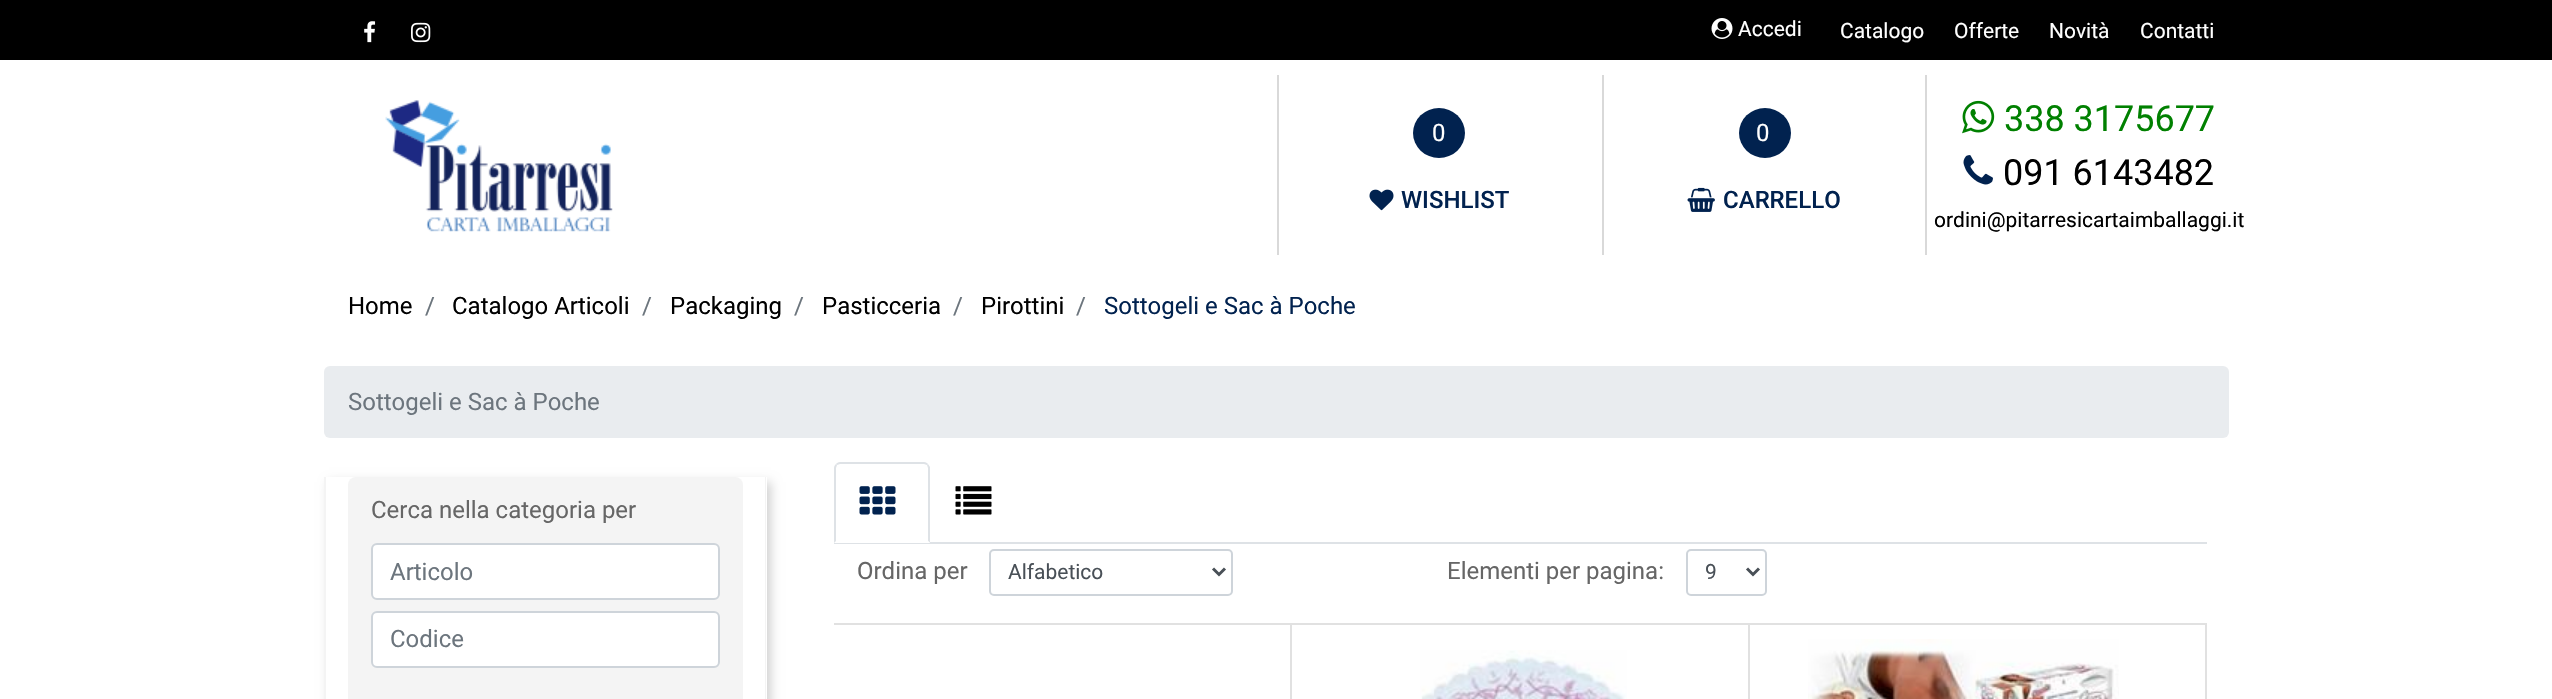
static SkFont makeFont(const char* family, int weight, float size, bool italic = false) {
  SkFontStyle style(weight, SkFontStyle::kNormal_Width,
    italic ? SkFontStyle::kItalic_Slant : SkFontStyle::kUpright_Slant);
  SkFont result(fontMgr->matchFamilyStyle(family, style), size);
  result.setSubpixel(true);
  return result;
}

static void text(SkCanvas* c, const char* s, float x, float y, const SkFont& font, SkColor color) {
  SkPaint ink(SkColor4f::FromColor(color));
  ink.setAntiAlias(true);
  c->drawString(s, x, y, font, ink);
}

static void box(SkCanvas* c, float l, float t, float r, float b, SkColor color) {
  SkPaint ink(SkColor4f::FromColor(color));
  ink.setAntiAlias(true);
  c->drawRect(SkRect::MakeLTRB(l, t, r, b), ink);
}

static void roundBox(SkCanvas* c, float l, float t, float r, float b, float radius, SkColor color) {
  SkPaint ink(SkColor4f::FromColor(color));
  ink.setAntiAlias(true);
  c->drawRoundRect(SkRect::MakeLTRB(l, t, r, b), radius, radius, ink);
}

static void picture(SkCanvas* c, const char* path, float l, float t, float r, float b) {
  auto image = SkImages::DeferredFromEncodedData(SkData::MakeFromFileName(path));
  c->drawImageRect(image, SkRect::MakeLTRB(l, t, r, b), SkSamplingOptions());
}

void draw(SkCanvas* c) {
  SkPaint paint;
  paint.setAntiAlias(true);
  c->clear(0xffffffff);
  box(c, 0, 0, 2552, 60, 0xff000000);
  picture(c, "img_01.png", 364, 21, 376, 43);
  picture(c, "img_02.png", 411, 22, 431, 43);
  picture(c, "img_03.png", 1711, 18, 1733, 39);
  SkFont face1 = makeFont("Roboto", 400, 21);
  text(c, "Accedi", 1738, 36, face1, 0xffffffff);
  text(c, "Catalogo", 1840, 38, face1, 0xffffffff);
  text(c, "Offerte", 1954, 38, face1, 0xffffffff);
  text(c, "Novità", 2049, 38, face1, 0xffffffff);
  text(c, "Contatti", 2140, 38, face1, 0xffffffff);
  picture(c, "img_04.png", 385, 100, 613, 232);
  box(c, 1277, 75, 1279, 255, 0xffd9d9d9);
  paint.setColor(0xff01224f);
  c->drawOval(SkRect::MakeLTRB(1413, 108, 1465, 158), paint);
  SkFont face2 = makeFont("Roboto", 400, 24);
  text(c, "0", 1432, 141, face2, 0xffffffff);
  picture(c, "img_05.png", 1369, 189, 1394, 211);
  SkFont face3 = makeFont("Roboto", 500, 24);
  text(c, "WISHLIST", 1401, 208, face3, 0xff01224f);
  box(c, 1925, 75, 1927, 255, 0xffd9d9d9);
  box(c, 1602, 75, 1604, 255, 0xffd9d9d9);
  c->drawOval(SkRect::MakeLTRB(1739, 108, 1791, 158), paint);
  text(c, "0", 1756, 141, face2, 0xffffffff);
  picture(c, "img_06.png", 1687, 187, 1715, 212);
  text(c, "CARRELLO", 1723, 208, face3, 0xff01224f);
  picture(c, "img_07.png", 1962, 100, 1995, 134);
  SkFont face4 = makeFont("Roboto", 400, 36);
  text(c, "338 3175677", 2004, 131, face4, 0xff008000);
  picture(c, "img_08.png", 1963, 155, 1993, 185);
  text(c, "091 6143482", 2003, 185, face4, 0xff000000);
  text(c, "ordini@pitarresicartaimballaggi.it", 1934, 227, face1, 0xff000000);
  text(c, "Home", 348, 314, face2, 0xff000000);
  text(c, "/", 425, 314, face2, 0xff6c757d);
  text(c, "Catalogo Articoli", 452, 314, face2, 0xff000000);
  text(c, "/", 642, 314, face2, 0xff6c757d);
  text(c, "Packaging", 670, 314, face2, 0xff000000);
  text(c, "/", 794, 314, face2, 0xff6c757d);
  text(c, "Pasticceria", 822, 314, face2, 0xff000000);
  text(c, "/", 953, 314, face2, 0xff6c757d);
  text(c, "Pirottini", 981, 314, face2, 0xff000000);
  text(c, "/", 1076, 314, face2, 0xff6c757d);
  text(c, "Sottogeli e Sac à Poche", 1104, 314, face2, 0xff01224f);
  roundBox(c, 324, 366, 2229, 438, 6, 0xffe9ecef);
  text(c, "Sottogeli e Sac à Poche", 348, 410, face2, 0xff6c757d);
  c->save();
  c->clipPath(SkPathBuilder(SkPathFillType::kEvenOdd).moveTo(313, 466).lineTo(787, 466).lineTo(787, 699).lineTo(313, 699).close().moveTo(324, 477).lineTo(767, 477).lineTo(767, 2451).lineTo(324, 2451).close().detach(), true);
  paint.setColor(0xffd1d1d1);
  paint.setMaskFilter(SkMaskFilter::MakeBlur(kNormal_SkBlurStyle, 5));
  c->drawRect(SkRect::MakeLTRB(329, 482, 771, 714), paint);
  paint.setMaskFilter(nullptr);
  c->restore();
  paint.setColor(0xfff4f4f4);
  c->drawPath(SkPathBuilder().moveTo(766, 477).lineTo(766, 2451).lineTo(765, 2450).lineTo(765, 477).close().detach(), paint);
  c->drawPath(SkPathBuilder().moveTo(324, 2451).lineTo(324, 477).lineTo(326, 477).lineTo(326, 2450).close().detach(), paint);
  roundBox(c, 348, 477, 743, 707, 8, 0xfff4f4f4);
  text(c, "Cerca nella categoria per", 371, 518, face2, 0xff666666);
  paint.setColor(0xffffffff);
  c->drawRoundRect(SkRect::MakeLTRB(372, 544, 719, 599), 5, 5, paint);
  paint.setStyle(SkPaint::kStroke_Style);
  paint.setStrokeWidth(2);
  paint.setColor(0xffced4da);
  c->drawRoundRect(SkRect::MakeLTRB(372, 544, 719, 599), 5, 5, paint);
  text(c, "Articolo", 390, 580, face2, 0xff6c757d);
  paint.setStyle(SkPaint::kFill_Style);
  paint.setColor(0xffffffff);
  c->drawRoundRect(SkRect::MakeLTRB(372, 612, 719, 667), 5, 5, paint);
  paint.setStyle(SkPaint::kStroke_Style);
  paint.setColor(0xffced4da);
  c->drawRoundRect(SkRect::MakeLTRB(372, 612, 719, 667), 5, 5, paint);
  text(c, "Codice", 390, 647, face2, 0xff6c757d);
  box(c, 834, 542, 2207, 544, 0xffdee2e6);
  paint.setStyle(SkPaint::kFill_Style);
  paint.setColor(0xffffffff);
  c->drawPath(SkPathBuilder().moveTo(840, 462).lineTo(924, 462).cubicTo(927.5f, 462, 930, 464.5f, 930, 468).lineTo(930, 543).lineTo(834, 543).lineTo(834, 468).cubicTo(834, 464.5f, 836.5f, 462, 840, 462).close().detach(), paint);
  paint.setColor(0xffdee2e6);
  c->drawPath(SkPathBuilder().moveTo(840, 462).cubicTo(838, 462, 837, 463, 836, 464).lineTo(837, 465).lineTo(840, 464).lineTo(924, 464).lineTo(927, 465).lineTo(928, 464).cubicTo(927, 463, 926, 462, 924, 462).close().detach(), paint);
  c->drawPath(SkPathBuilder().moveTo(930, 543).lineTo(930, 467).lineTo(928, 464).lineTo(927, 465).lineTo(928, 468).lineTo(928, 541).close().detach(), paint);
  paint.setColor(0xffffffff);
  c->drawPath(SkPathBuilder().moveTo(930, 543).lineTo(928, 541).lineTo(928, 542).lineTo(836, 542).lineTo(836, 541).lineTo(834, 543).close().detach(), paint);
  paint.setColor(0xffdee2e6);
  c->drawPath(SkPathBuilder().moveTo(834, 543).lineTo(836, 541).lineTo(836, 468).lineTo(837, 465).lineTo(836, 464).cubicTo(835, 465, 834, 466, 834, 468).close().detach(), paint);
  picture(c, "img_09.png", 859, 486, 896, 515);
  picture(c, "img_10.png", 955, 486, 992, 515);
  text(c, "Ordina per", 857, 579, face2, 0xff666666);
  paint.setStyle(SkPaint::kStroke_Style);
  paint.setColor(0xffced4da);
  c->drawRoundRect(SkRect::MakeLTRB(990, 550, 1232, 595), 4, 4, paint);
  paint.setStrokeWidth(3);
  paint.setColor(0xff495057);
  c->drawPath(SkPathBuilder().moveTo(1213, 568.5f).lineTo(1219, 574.5f).lineTo(1225, 568.5f).detach(), paint);
  text(c, "Alfabetico", 1008, 579, face1, 0xff495057);
  text(c, "Elementi per pagina:", 1447, 579, face2, 0xff666666);
  paint.setStrokeWidth(2);
  paint.setColor(0xffced4da);
  c->drawRoundRect(SkRect::MakeLTRB(1687, 550, 1766, 595), 4, 4, paint);
  paint.setStrokeWidth(3);
  paint.setColor(0xff495057);
  c->drawPath(SkPathBuilder().moveTo(1747, 568.5f).lineTo(1753, 574.5f).lineTo(1759, 568.5f).detach(), paint);
  text(c, "9", 1705, 579, face1, 0xff495057);
  box(c, 834, 623, 1749, 625, 0xffe1e1e1);
  box(c, 1290, 623, 1292, 699, 0xffe1e1e1);
  box(c, 1748, 623, 1750, 699, 0xffe1e1e1);
  picture(c, "img_11.png", 1420, 650, 1627, 699);
  box(c, 1749, 623, 2207, 625, 0xffe1e1e1);
  box(c, 2205, 623, 2207, 699, 0xffe1e1e1);
  picture(c, "img_12.png", 1808, 639, 2119, 699);
}
